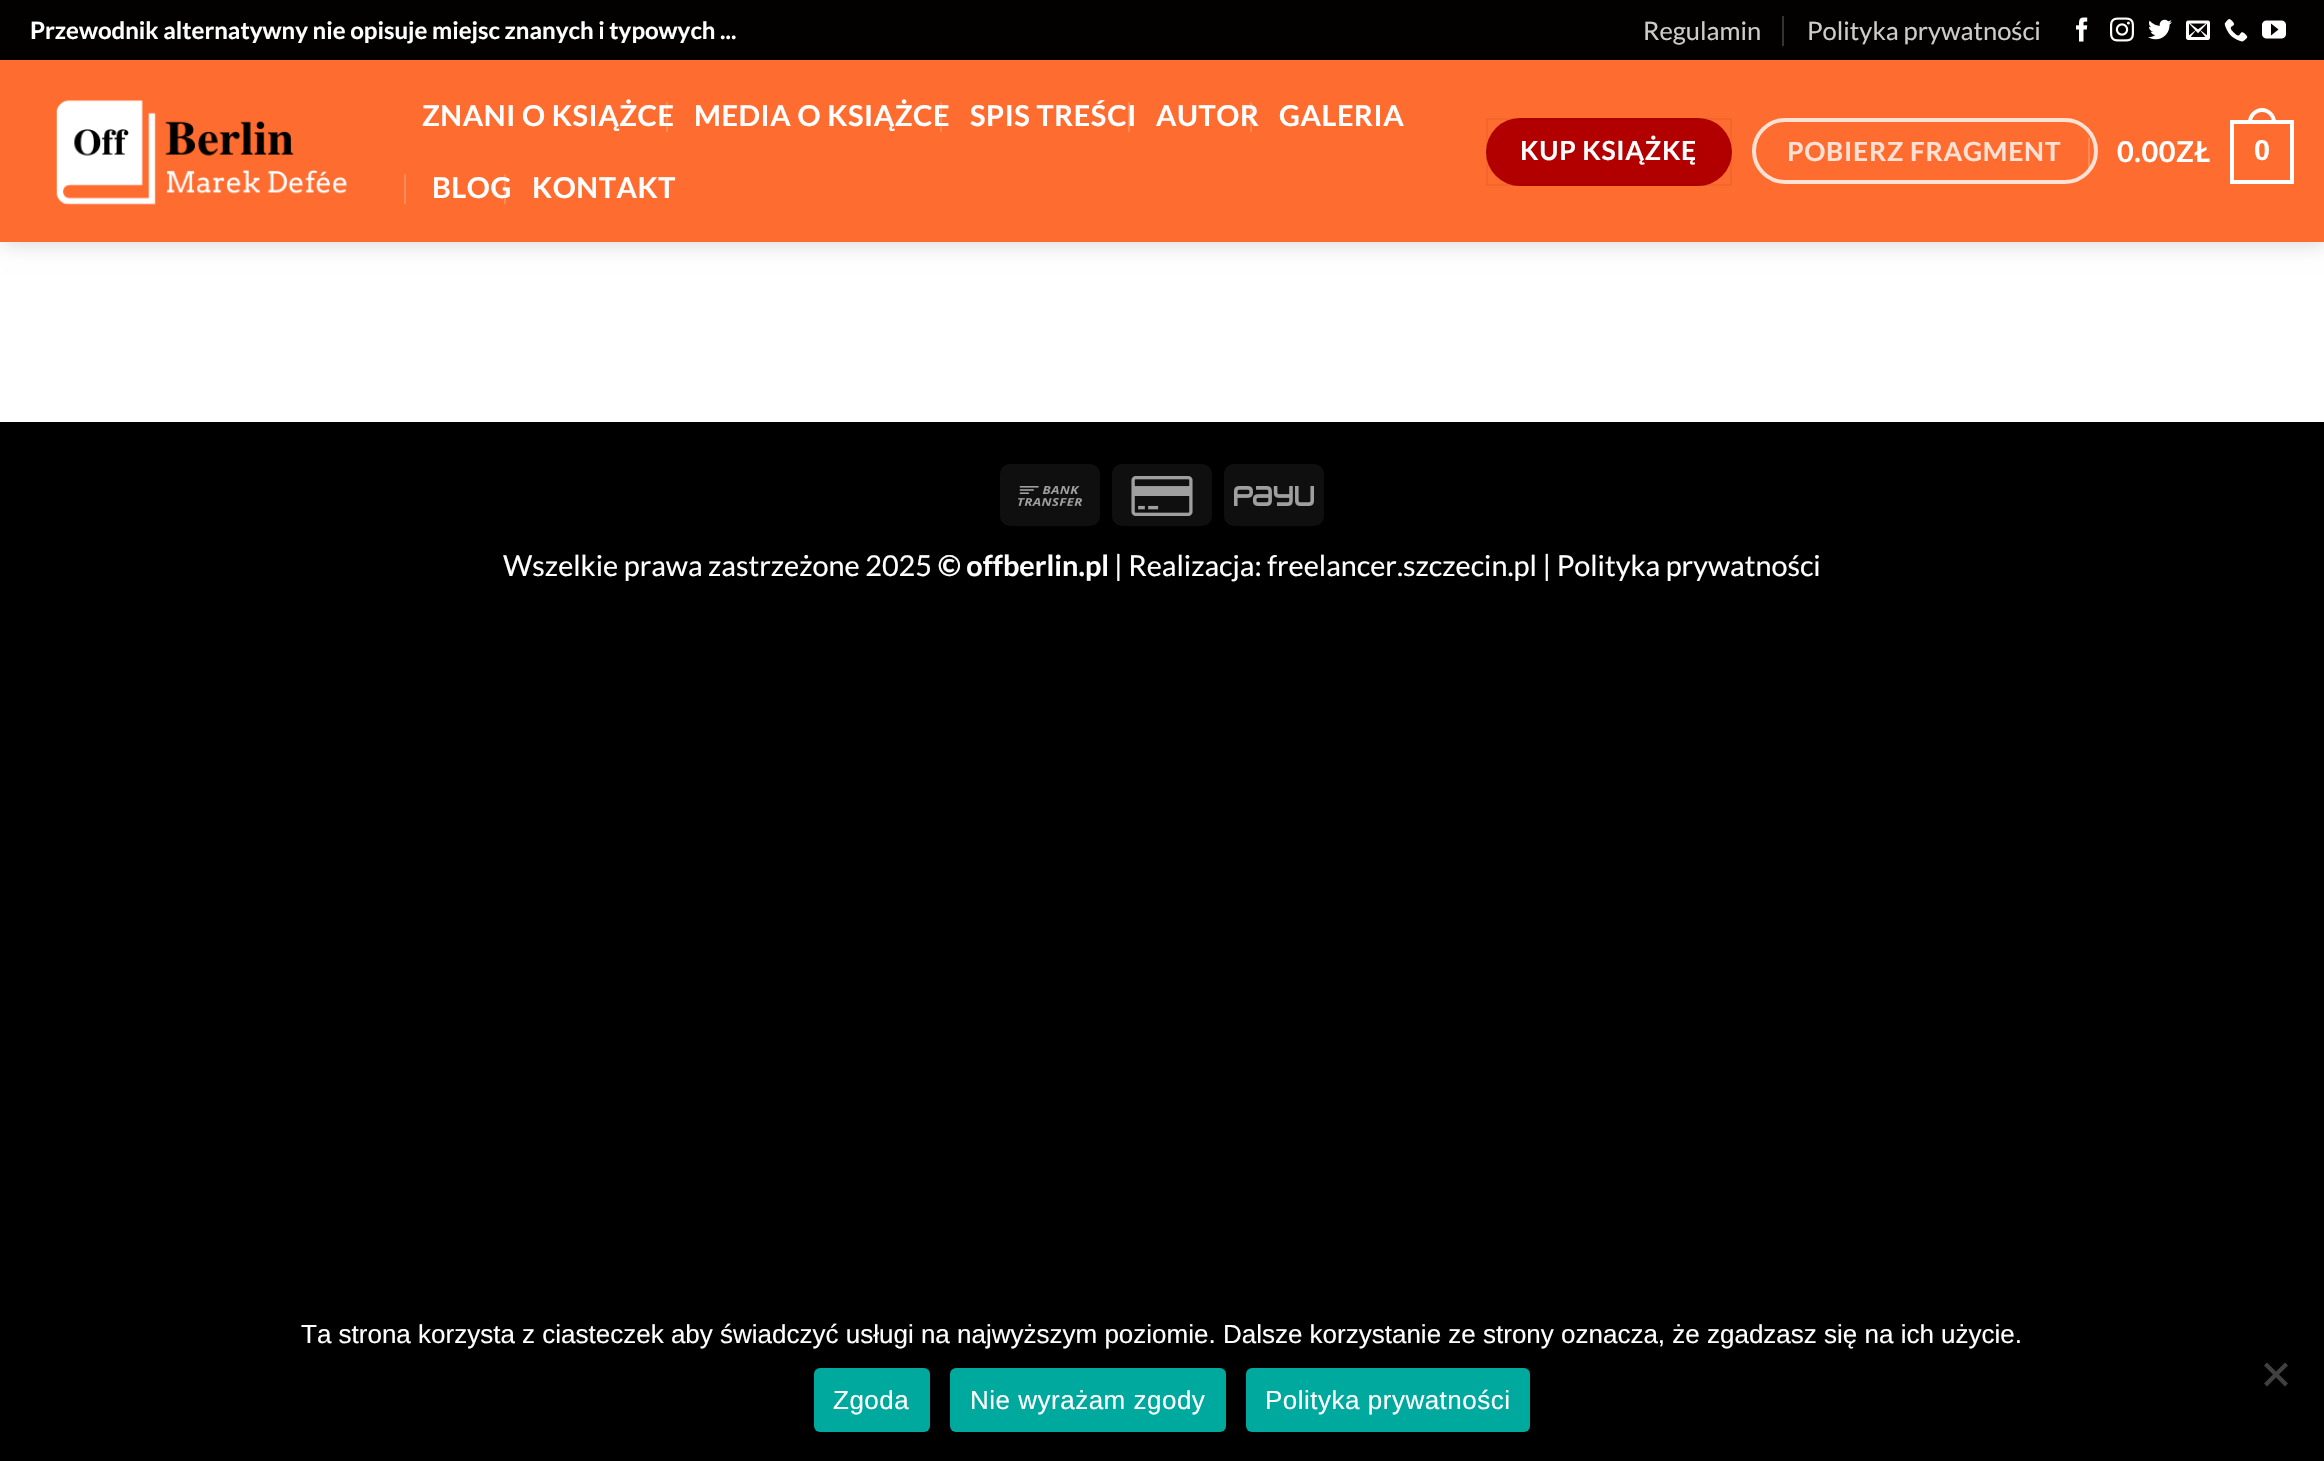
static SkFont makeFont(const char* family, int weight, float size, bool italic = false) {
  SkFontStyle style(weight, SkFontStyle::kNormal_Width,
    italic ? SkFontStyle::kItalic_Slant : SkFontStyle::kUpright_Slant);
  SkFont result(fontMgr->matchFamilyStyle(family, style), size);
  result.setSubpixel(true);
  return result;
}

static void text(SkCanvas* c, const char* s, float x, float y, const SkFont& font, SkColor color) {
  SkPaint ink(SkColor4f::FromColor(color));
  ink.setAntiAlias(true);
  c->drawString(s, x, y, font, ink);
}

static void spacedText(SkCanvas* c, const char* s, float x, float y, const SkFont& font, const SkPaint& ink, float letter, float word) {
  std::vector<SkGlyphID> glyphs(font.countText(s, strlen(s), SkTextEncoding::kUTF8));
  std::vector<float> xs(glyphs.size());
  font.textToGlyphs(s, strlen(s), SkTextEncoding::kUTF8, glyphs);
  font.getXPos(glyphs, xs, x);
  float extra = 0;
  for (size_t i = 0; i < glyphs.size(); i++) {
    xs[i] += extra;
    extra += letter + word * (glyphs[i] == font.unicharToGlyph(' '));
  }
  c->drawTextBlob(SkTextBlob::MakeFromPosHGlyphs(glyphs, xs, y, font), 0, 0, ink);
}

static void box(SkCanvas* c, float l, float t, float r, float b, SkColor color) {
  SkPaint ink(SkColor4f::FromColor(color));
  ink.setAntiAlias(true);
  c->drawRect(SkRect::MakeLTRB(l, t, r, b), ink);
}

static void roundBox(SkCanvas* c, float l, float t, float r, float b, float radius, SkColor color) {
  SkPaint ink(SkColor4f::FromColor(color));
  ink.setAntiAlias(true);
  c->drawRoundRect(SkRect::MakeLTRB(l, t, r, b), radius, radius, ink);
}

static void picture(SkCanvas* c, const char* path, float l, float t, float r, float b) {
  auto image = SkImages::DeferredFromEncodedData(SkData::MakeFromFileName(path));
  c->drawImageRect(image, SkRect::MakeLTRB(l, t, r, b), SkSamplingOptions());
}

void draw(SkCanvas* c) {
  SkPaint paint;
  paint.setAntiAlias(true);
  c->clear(0xff000000);
  box(c, 0, 242, 2324, 422, 0xffffffff);
  paint.setColor(0x26000000);
  paint.setMaskFilter(SkMaskFilter::MakeBlur(kNormal_SkBlurStyle, 10));
  c->drawRect(SkRect::MakeLTRB(2, 2, 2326, 244), paint);
  paint.setMaskFilter(nullptr);
  box(c, 0, 60, 2324, 242, 0xffff6c2f);
  box(c, 0, 0, 2324, 60, 0xff030100);
  SkFont face1 = makeFont("Lato", 700, 24);
  text(c, "Przewodnik alternatywny nie opisuje miejsc znanych i typowych ...", 30, 39, face1, 0xffffffff);
  SkFont face2 = makeFont("Lato", 400, 25.5f);
  text(c, "Regulamin", 1643, 40, face2, 0xffcdcccc);
  box(c, 1782, 16, 1784, 46, 0xff353433);
  text(c, "Polityka prywatności", 1807, 40, face2, 0xffcdcccc);
  picture(c, "img_01.png", 2076, 17, 2088, 42);
  picture(c, "img_02.png", 2110, 17, 2134, 42);
  picture(c, "img_03.png", 2148, 19, 2172, 40);
  picture(c, "img_04.png", 2186, 20, 2210, 40);
  picture(c, "img_05.png", 2224, 19, 2248, 42);
  picture(c, "img_06.png", 2262, 20, 2286, 39);
  picture(c, "img_07.png", 56, 100, 347, 205);
  SkFont face3 = makeFont("Lato", 700, 28.8f);
  paint.setColor(0xffffffff);
  spacedText(c, "ZNANI O KSIĄŻCE", 422, 126, face3, paint, 0.6f, 0);
  box(c, 666, 102, 668, 132, 0x33ffffff);
  spacedText(c, "MEDIA O KSIĄŻCE", 694, 126, face3, paint, 0.6f, 0);
  box(c, 940, 102, 942, 132, 0x33ffffff);
  spacedText(c, "SPIS TREŚCI", 970, 126, face3, paint, 0.6f, 0);
  box(c, 1128, 102, 1130, 132, 0x33ffffff);
  spacedText(c, "AUTOR", 1156, 126, face3, paint, 0.6f, 0);
  box(c, 1250, 102, 1252, 132, 0x33ffffff);
  spacedText(c, "GALERIA", 1279, 126, face3, paint, 0.6f, 0);
  box(c, 404, 174, 406, 204, 0xffff8959);
  spacedText(c, "BLOG", 432, 198, face3, paint, 0.6f, 0);
  box(c, 504, 174, 506, 204, 0x33ffffff);
  spacedText(c, "KONTAKT", 532, 198, face3, paint, 0.6f, 0);
  roundBox(c, 1486, 118, 1732, 186, 34, 0xffb20000);
  paint.setStyle(SkPaint::kStroke_Style);
  paint.setStrokeWidth(2);
  paint.setColor(0x0d000000);
  c->drawRect(SkRect::MakeLTRB(1487, 119, 1731, 185), paint);
  SkFont face4 = makeFont("Lato", 700, 26.4f);
  paint.setStyle(SkPaint::kFill_Style);
  paint.setColor(0xffffffff);
  spacedText(c, "KUP KSIĄŻKĘ", 1520, 160, face4, paint, 0.75f, 0);
  paint.setStyle(SkPaint::kStroke_Style);
  paint.setStrokeWidth(4);
  paint.setColor(0xffffe2d5);
  c->drawRoundRect(SkRect::MakeLTRB(1754, 120, 2096, 182), 31, 31, paint);
  paint.setStyle(SkPaint::kFill_Style);
  spacedText(c, "POBIERZ FRAGMENT", 1787, 161, face4, paint, 0.75f, 0);
  box(c, 2088, 138, 2090, 168, 0x33ffffff);
  paint.setColor(0xffffffff);
  spacedText(c, "0.00ZŁ", 2117, 162, face3, paint, 0.6f, 0);
  paint.setStyle(SkPaint::kStroke_Style);
  c->drawRect(SkRect::MakeLTRB(2232, 122, 2292, 182), paint);
  paint.setStyle(SkPaint::kFill_Style);
  c->drawPath(SkPathBuilder(SkPathFillType::kEvenOdd).moveTo(2262, 108).cubicTo(2269.5f, 108, 2276, 114.5f, 2276, 122).lineTo(2276, 124).lineTo(2248, 124).lineTo(2248, 122).cubicTo(2248, 114.5f, 2254.5f, 108, 2262, 108).close().moveTo(2262, 112).cubicTo(2267.5f, 112, 2272, 116.5f, 2272, 122).lineTo(2272, 124).lineTo(2252, 124).lineTo(2252, 122).cubicTo(2252, 116.5f, 2256.5f, 112, 2262, 112).close().detach(), paint);
  SkFont face5 = makeFont("Liberation Sans", 700, 28.8f);
  spacedText(c, "0", 2254, 160, face5, paint, 0.6f, 0);
  roundBox(c, 1000, 464, 1100, 526, 10, 0xff0f0f0f);
  picture(c, "img_08.png", 1018, 486, 1082, 506);
  roundBox(c, 1112, 464, 1212, 526, 10, 0xff0f0f0f);
  picture(c, "img_09.png", 1131, 476, 1193, 516);
  roundBox(c, 1224, 464, 1324, 526, 10, 0xff0f0f0f);
  picture(c, "img_10.png", 1234, 486, 1314, 506);
  SkFont face6 = makeFont("Lato", 400, 28.8f);
  text(c, "Wszelkie prawa zastrzeżone 2025", 503, 576, face6, 0xffffffff);
  text(c, "© offberlin.pl", 938, 576, face3, 0xffffffff);
  text(c, "| Realizacja: freelancer.szczecin.pl | Polityka prywatności", 1114, 576, face6, 0xffffffff);
  SkFont face7 = makeFont("Liberation Sans", 400, 26);
  text(c, "Ta strona korzysta z ciasteczek aby świadczyć usługi na najwyższym poziomie. Dalsze korzystanie ze strony oznacza, że zgadzasz się na ich użycie.", 301, 1343, face7, 0xffffffff);
  paint.setColor(0xff404040);
  c->drawPath(SkPathBuilder().moveTo(2285, 1362.5f).lineTo(2288, 1365.5f).lineTo(2267, 1386.5f).lineTo(2264, 1383.5f).close().detach(), paint);
  c->drawPath(SkPathBuilder().moveTo(2264, 1365.5f).lineTo(2267, 1362.5f).lineTo(2288, 1383.5f).lineTo(2285, 1386.5f).close().detach(), paint);
  roundBox(c, 814, 1368, 930, 1432, 6, 0xff00a99d);
  paint.setColor(0xffffffff);
  spacedText(c, "Zgoda", 833, 1409, face7, paint, 0.5f, 0);
  roundBox(c, 950, 1368, 1226, 1432, 6, 0xff00a99d);
  spacedText(c, "Nie wyrażam zgody", 970, 1409, face7, paint, 0.5f, 0);
  roundBox(c, 1246, 1368, 1530, 1432, 6, 0xff00a99d);
  spacedText(c, "Polityka prywatności", 1265, 1409, face7, paint, 0.5f, 0);
}
